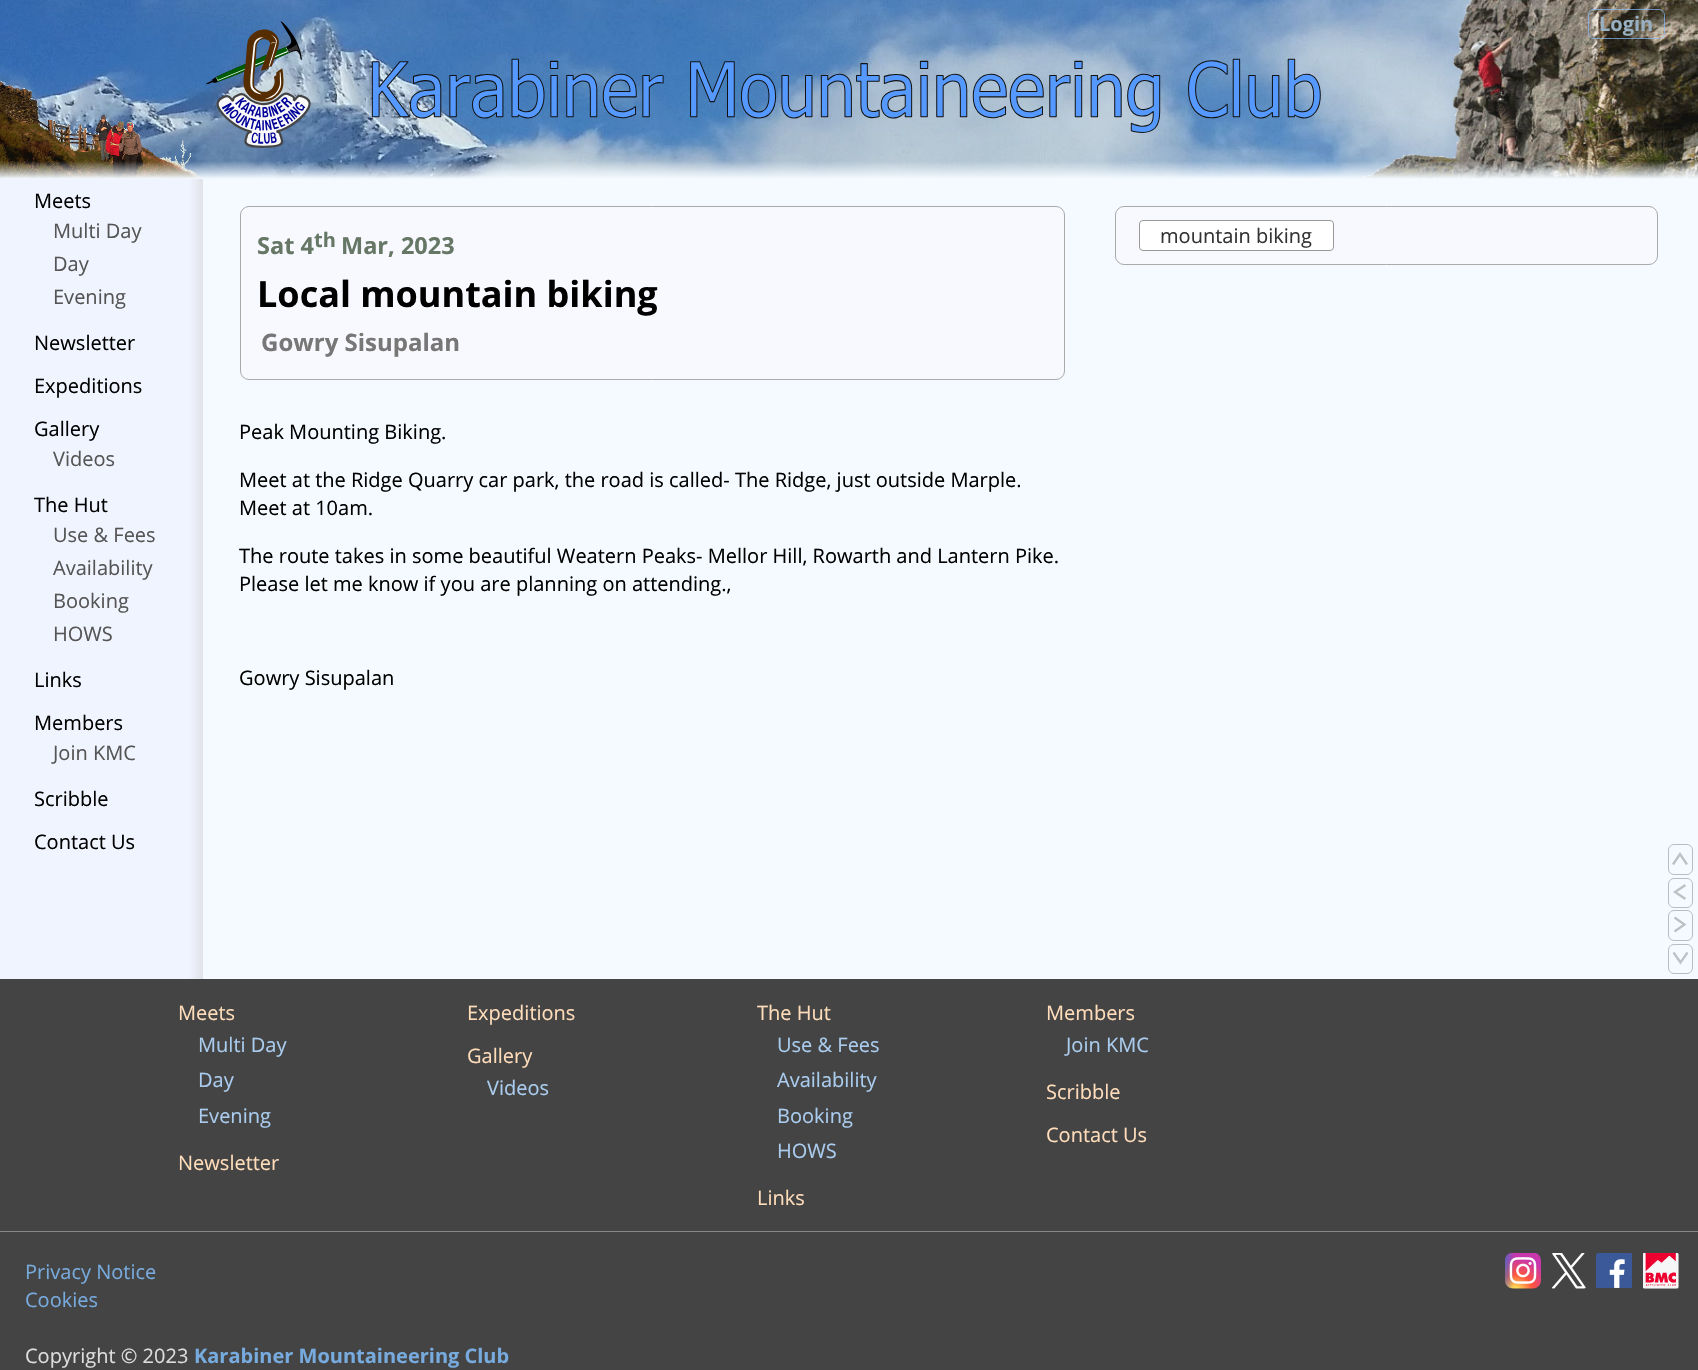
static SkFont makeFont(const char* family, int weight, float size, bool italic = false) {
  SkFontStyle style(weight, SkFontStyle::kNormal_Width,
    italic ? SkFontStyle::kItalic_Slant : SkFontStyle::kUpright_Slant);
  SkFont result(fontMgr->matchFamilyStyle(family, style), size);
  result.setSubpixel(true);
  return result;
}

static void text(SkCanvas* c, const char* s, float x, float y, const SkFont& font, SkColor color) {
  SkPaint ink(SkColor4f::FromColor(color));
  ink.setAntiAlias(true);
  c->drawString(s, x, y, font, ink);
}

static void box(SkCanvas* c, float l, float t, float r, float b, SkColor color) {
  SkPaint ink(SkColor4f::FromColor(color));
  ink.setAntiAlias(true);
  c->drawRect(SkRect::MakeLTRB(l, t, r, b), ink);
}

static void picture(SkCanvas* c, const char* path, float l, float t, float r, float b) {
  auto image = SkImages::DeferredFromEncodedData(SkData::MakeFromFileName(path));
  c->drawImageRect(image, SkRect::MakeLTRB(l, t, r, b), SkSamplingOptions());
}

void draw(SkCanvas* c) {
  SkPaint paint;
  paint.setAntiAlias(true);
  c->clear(0xffffffff);
  {
    const SkColor colors[] = {0xff77bbff, 0xff444444};
    const float stops[] = {0.13f, 0.16f};
    const SkPoint ends[] = {{849, 0}, {849, 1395}};
    paint.setShader(SkGradientShader::MakeLinear(ends, colors, stops, 2, SkTileMode::kClamp));
    paint.setAlpha(255);
  }
  c->drawRect(SkRect::MakeLTRB(0, 979, 1698, 1370), paint);
  picture(c, "img_01.png", 0, 0, 1698, 179);
  picture(c, "img_02.png", 0, 81, 203, 179);
  picture(c, "img_03.png", 206, 21, 311, 148);
  picture(c, "img_04.png", 371, 58, 1321, 133);
  picture(c, "img_05.png", 1360, 0, 1698, 179);
  paint.setStyle(SkPaint::kStroke_Style);
  paint.setStrokeWidth(1);
  paint.setShader(nullptr);
  paint.setColor(0xb388bbff);
  c->drawRoundRect(SkRect::MakeLTRB(1588.5f, 9.5f, 1664.5f, 38.5f), 5.5f, 5.5f, paint);
  SkFont face1 = makeFont("Open Sans", 700, 20);
  text(c, "Login", 1599, 31, face1, 0xff99afc2);
  paint.setStyle(SkPaint::kFill_Style);
  {
    const SkColor colors[] = {0x00f4faff, 0xfff4faff};
    const float stops[] = {0, 1};
    const SkPoint ends[] = {{849, 161}, {849, 179}};
    paint.setShader(SkGradientShader::MakeLinear(ends, colors, stops, 2, SkTileMode::kClamp));
    paint.setAlpha(255);
  }
  c->drawRect(SkRect::MakeLTRB(0, 161, 1698, 179), paint);
  box(c, 203, 179, 1698, 979, 0xfff4faff);
  {
    const SkColor colors[] = {0xfff0f4ff, 0xffe0e2e8};
    const float stops[] = {0.93f, 1};
    const SkPoint ends[] = {{0, 579}, {203, 579}};
    paint.setShader(SkGradientShader::MakeLinear(ends, colors, stops, 2, SkTileMode::kClamp));
    paint.setAlpha(255);
  }
  c->drawRect(SkRect::MakeLTRB(0, 179, 203, 979), paint);
  SkFont face2 = makeFont("Open Sans", 400, 20);
  text(c, "Meets", 34, 208, face2, 0xff000000);
  text(c, "Multi Day", 53, 238, face2, 0xff555555);
  text(c, "Day", 53, 271, face2, 0xff555555);
  text(c, "Evening", 53, 304, face2, 0xff555555);
  text(c, "Newsletter", 34, 350, face2, 0xff000000);
  text(c, "Expeditions", 34, 393, face2, 0xff000000);
  text(c, "Gallery", 34, 436, face2, 0xff000000);
  text(c, "Videos", 53, 466, face2, 0xff555555);
  text(c, "The Hut", 34, 512, face2, 0xff000000);
  text(c, "Use & Fees", 53, 542, face2, 0xff555555);
  text(c, "Availability", 53, 575, face2, 0xff555555);
  text(c, "Booking", 53, 608, face2, 0xff555555);
  text(c, "HOWS", 53, 641, face2, 0xff555555);
  text(c, "Links", 34, 687, face2, 0xff000000);
  text(c, "Members", 34, 730, face2, 0xff000000);
  text(c, "Join KMC", 53, 760, face2, 0xff555555);
  text(c, "Scribble", 34, 806, face2, 0xff000000);
  text(c, "Contact Us", 34, 849, face2, 0xff000000);
  paint.setShader(nullptr);
  paint.setColor(0xfff8f8ff);
  c->drawRoundRect(SkRect::MakeLTRB(240.5f, 206.5f, 1064.5f, 379.5f), 8.5f, 8.5f, paint);
  paint.setStyle(SkPaint::kStroke_Style);
  paint.setColor(0xffaaaaaa);
  c->drawRoundRect(SkRect::MakeLTRB(240.5f, 206.5f, 1064.5f, 379.5f), 8.5f, 8.5f, paint);
  SkFont face3 = makeFont("Open Sans", 700, 23.5f);
  text(c, "Sat 4", 257, 254, face3, 0xff667766);
  text(c, "th", 314, 247, face1, 0xff667766);
  text(c, "Mar, 2023", 341, 254, face3, 0xff667766);
  SkFont face4 = makeFont("Open Sans", 700, 36);
  text(c, "Local mountain biking", 257, 307, face4, 0xff000000);
  SkFont face5 = makeFont("Open Sans", 700, 24);
  text(c, "Gowry Sisupalan", 261, 351, face5, 0xff777777);
  text(c, "Peak Mounting Biking.", 239, 439, face2, 0xff000000);
  text(c, "Meet at the Ridge Quarry car park, the road is called- The Ridge, just outside Marple.", 239, 487, face2, 0xff000000);
  text(c, "Meet at 10am.", 239, 515, face2, 0xff000000);
  text(c, "The route takes in some beautiful Weatern Peaks- Mellor Hill, Rowarth and Lantern Pike.", 239, 563, face2, 0xff000000);
  text(c, "Please let me know if you are planning on attending.,", 239, 591, face2, 0xff000000);
  text(c, "Gowry Sisupalan", 239, 685, face2, 0xff000000);
  paint.setStyle(SkPaint::kFill_Style);
  paint.setColor(0xfff8f8ff);
  c->drawRoundRect(SkRect::MakeLTRB(1115.5f, 206.5f, 1657.5f, 264.5f), 8.5f, 8.5f, paint);
  paint.setStyle(SkPaint::kStroke_Style);
  paint.setColor(0xffaaaaaa);
  c->drawRoundRect(SkRect::MakeLTRB(1115.5f, 206.5f, 1657.5f, 264.5f), 8.5f, 8.5f, paint);
  paint.setStyle(SkPaint::kFill_Style);
  paint.setColor(0xffffffff);
  c->drawRoundRect(SkRect::MakeLTRB(1139.5f, 220.5f, 1333.5f, 250.5f), 3.5f, 3.5f, paint);
  paint.setStyle(SkPaint::kStroke_Style);
  paint.setColor(0xff999999);
  c->drawRoundRect(SkRect::MakeLTRB(1139.5f, 220.5f, 1333.5f, 250.5f), 3.5f, 3.5f, paint);
  text(c, "mountain biking", 1160, 243, face2, 0xff333333);
  paint.setColor(0xffbabdc0);
  c->drawRoundRect(SkRect::MakeLTRB(1668.5f, 844.5f, 1692.5f, 874.5f), 5.5f, 5.5f, paint);
  paint.setStrokeWidth(2.3f);
  paint.setColor(0xffbec1c4);
  c->drawPath(SkPathBuilder().moveTo(1673, 864.5f).lineTo(1680, 854).lineTo(1687, 864.5f).detach(), paint);
  paint.setStrokeWidth(1);
  paint.setColor(0xffbabdc0);
  c->drawRoundRect(SkRect::MakeLTRB(1668.5f, 878.5f, 1692.5f, 907.5f), 5.5f, 5.5f, paint);
  c->drawRoundRect(SkRect::MakeLTRB(1668.5f, 910.5f, 1692.5f, 940.5f), 5.5f, 5.5f, paint);
  paint.setStrokeWidth(2.3f);
  paint.setColor(0xffbec1c4);
  c->drawPath(SkPathBuilder().moveTo(1685.5f, 899).lineTo(1675, 892).lineTo(1685.5f, 885).moveTo(1674.5f, 917.5f).lineTo(1684.5f, 924.5f).lineTo(1674.5f, 931.5f).detach(), paint);
  paint.setStrokeWidth(1);
  paint.setColor(0xffbabdc0);
  c->drawRoundRect(SkRect::MakeLTRB(1668.5f, 944.5f, 1692.5f, 973.5f), 5.5f, 5.5f, paint);
  paint.setStrokeWidth(2.3f);
  paint.setColor(0xffbec1c4);
  c->drawPath(SkPathBuilder().moveTo(1687.5f, 952.5f).lineTo(1680.5f, 962.5f).lineTo(1673.5f, 952.5f).detach(), paint);
  text(c, "Meets", 178, 1020, face2, 0xffffddbb);
  text(c, "Multi Day", 198, 1052, face2, 0xffaaccee);
  text(c, "Day", 198, 1087, face2, 0xffaaccee);
  text(c, "Evening", 198, 1123, face2, 0xffaaccee);
  text(c, "Expeditions", 467, 1020, face2, 0xffffddbb);
  text(c, "The Hut", 757, 1020, face2, 0xffffddbb);
  text(c, "Use & Fees", 777, 1052, face2, 0xffaaccee);
  text(c, "Availability", 777, 1087, face2, 0xffaaccee);
  text(c, "Booking", 777, 1123, face2, 0xffaaccee);
  text(c, "HOWS", 777, 1158, face2, 0xffaaccee);
  text(c, "Members", 1046, 1020, face2, 0xffffddbb);
  text(c, "Join KMC", 1066, 1052, face2, 0xffaaccee);
  text(c, "Gallery", 467, 1063, face2, 0xffffddbb);
  text(c, "Videos", 487, 1095, face2, 0xffaaccee);
  text(c, "Scribble", 1046, 1099, face2, 0xffffddbb);
  text(c, "Contact Us", 1046, 1142, face2, 0xffffddbb);
  text(c, "Newsletter", 178, 1170, face2, 0xffffddbb);
  text(c, "Links", 757, 1205, face2, 0xffffddbb);
  box(c, 0, 1231, 1698, 1232, 0xff888888);
  text(c, "Privacy Notice", 25, 1279, face2, 0xff77aadd);
  text(c, "Cookies", 25, 1307, face2, 0xff77aadd);
  text(c, "Copyright © 2023", 25, 1363, face2, 0xffdddddd);
  text(c, "Karabiner Mountaineering Club", 194, 1363, face1, 0xff77aadd);
  picture(c, "img_06.png", 1505, 1253, 1541, 1289);
  picture(c, "img_07.png", 1551, 1253, 1586, 1289);
  picture(c, "img_08.png", 1596, 1253, 1632, 1288);
  picture(c, "img_09.png", 1643, 1253, 1679, 1289);
}
